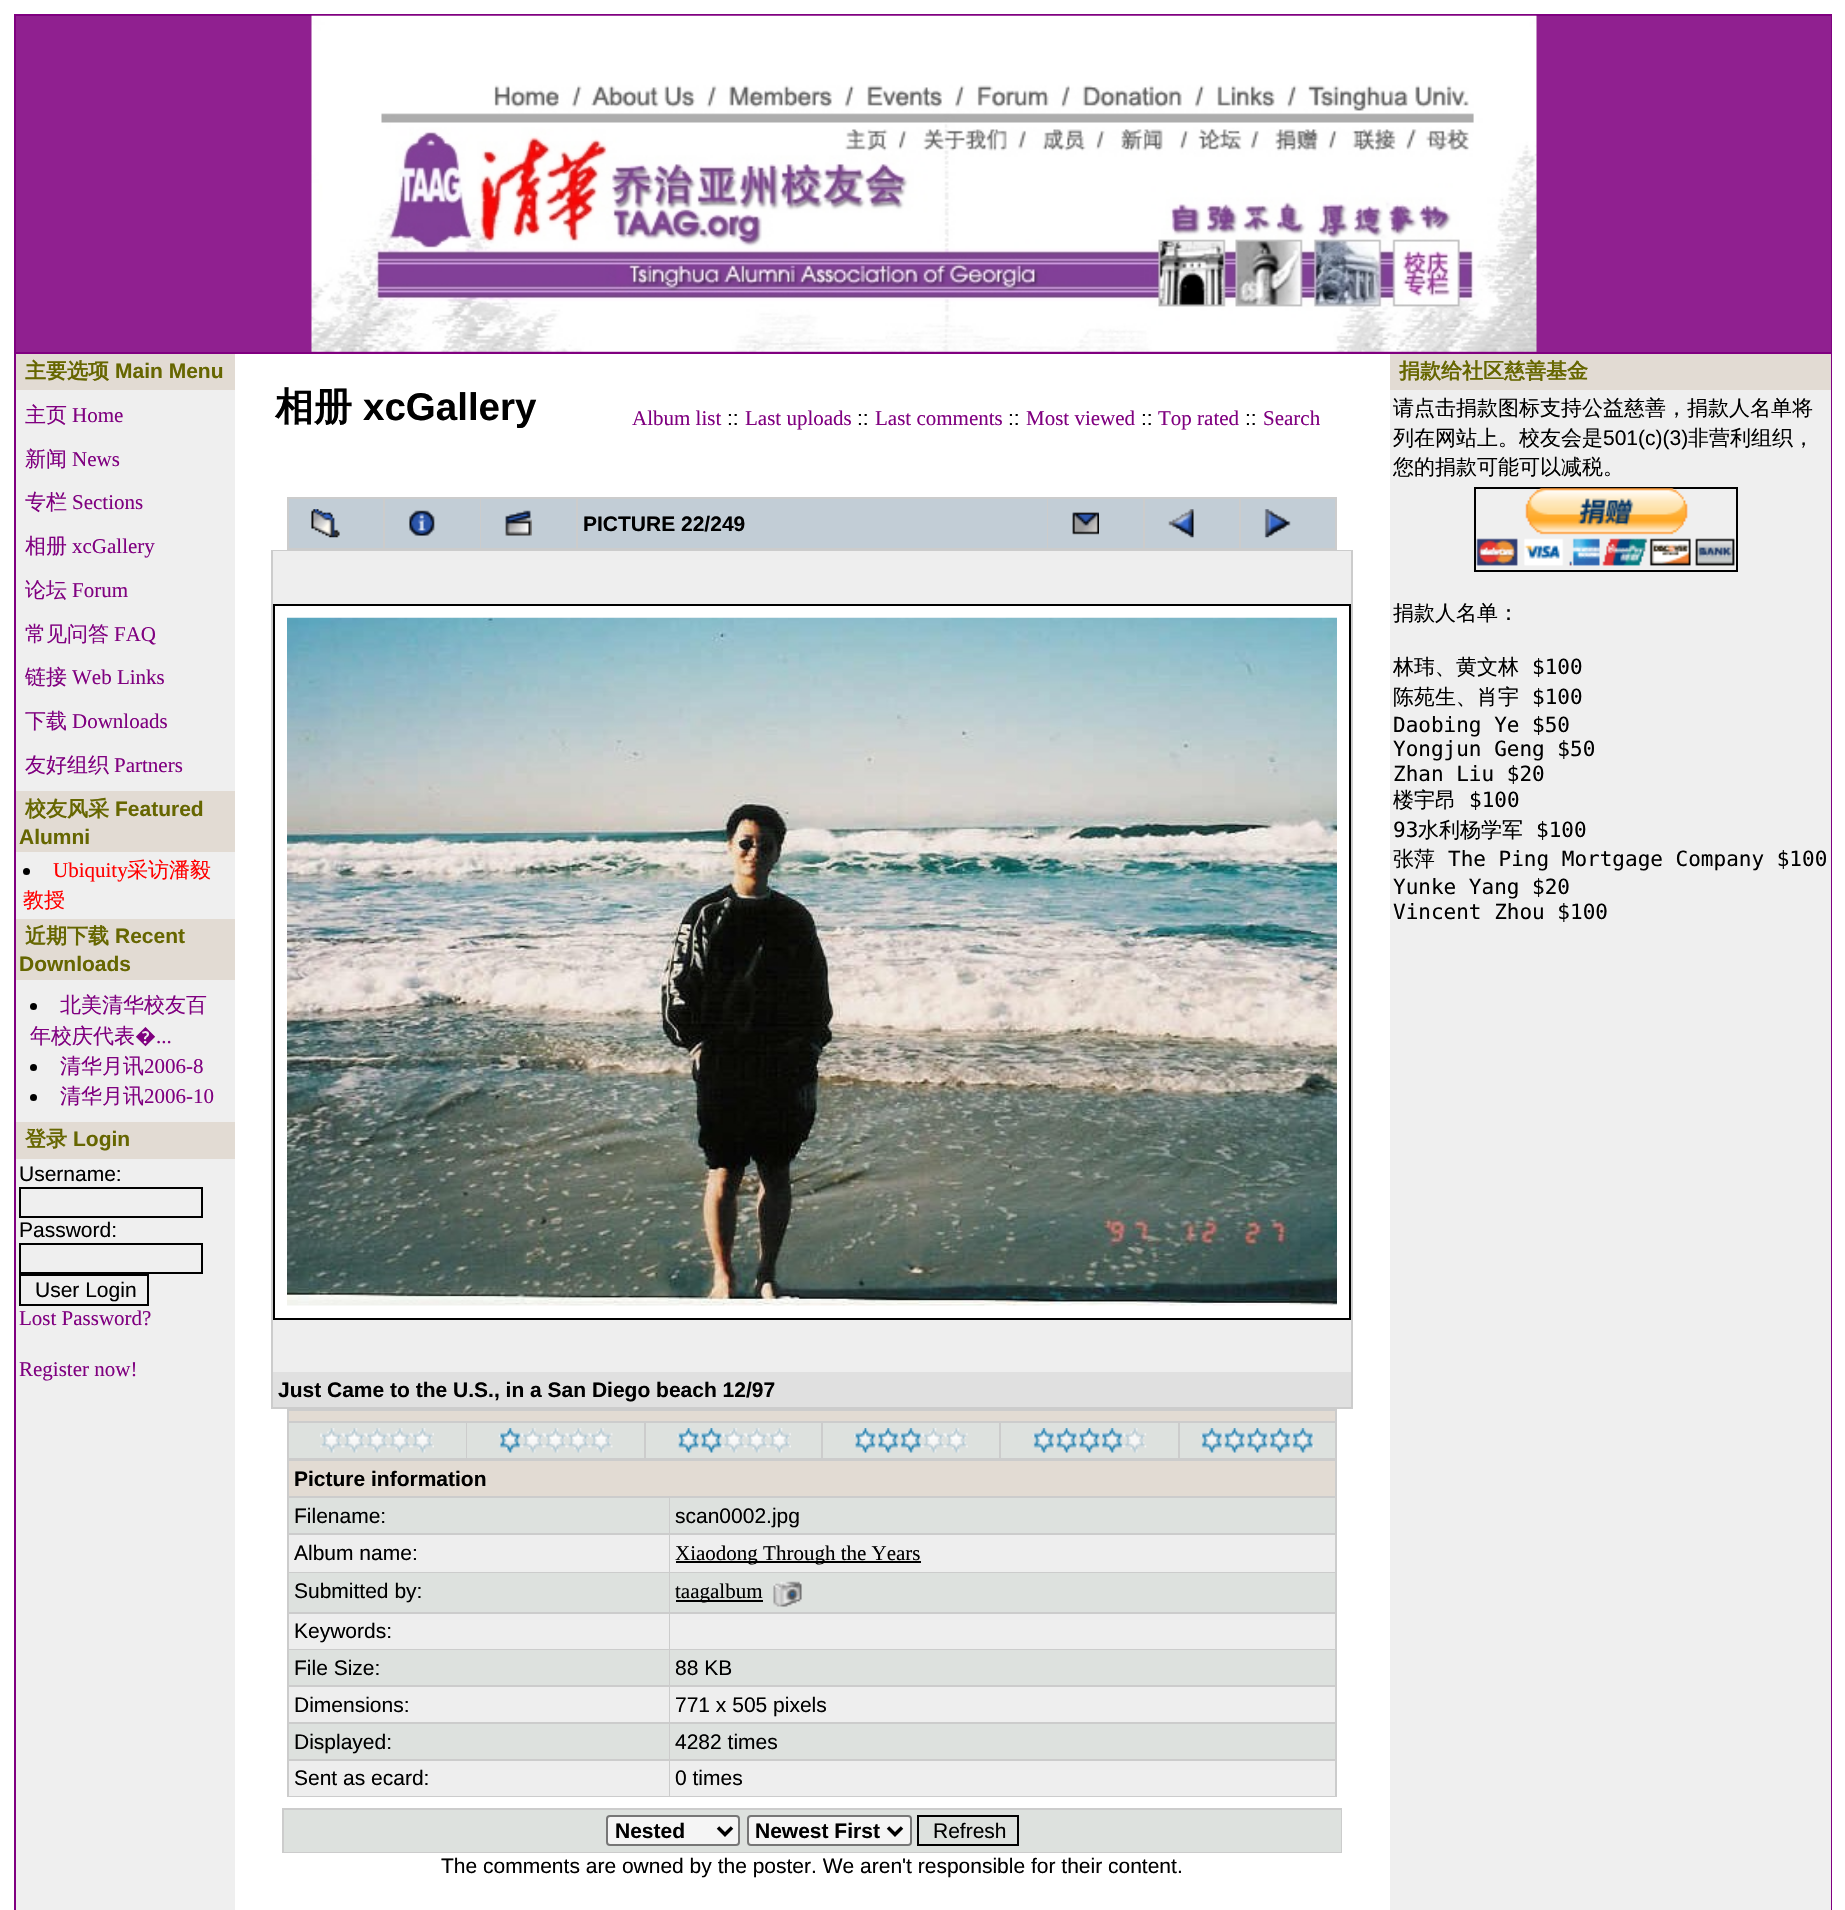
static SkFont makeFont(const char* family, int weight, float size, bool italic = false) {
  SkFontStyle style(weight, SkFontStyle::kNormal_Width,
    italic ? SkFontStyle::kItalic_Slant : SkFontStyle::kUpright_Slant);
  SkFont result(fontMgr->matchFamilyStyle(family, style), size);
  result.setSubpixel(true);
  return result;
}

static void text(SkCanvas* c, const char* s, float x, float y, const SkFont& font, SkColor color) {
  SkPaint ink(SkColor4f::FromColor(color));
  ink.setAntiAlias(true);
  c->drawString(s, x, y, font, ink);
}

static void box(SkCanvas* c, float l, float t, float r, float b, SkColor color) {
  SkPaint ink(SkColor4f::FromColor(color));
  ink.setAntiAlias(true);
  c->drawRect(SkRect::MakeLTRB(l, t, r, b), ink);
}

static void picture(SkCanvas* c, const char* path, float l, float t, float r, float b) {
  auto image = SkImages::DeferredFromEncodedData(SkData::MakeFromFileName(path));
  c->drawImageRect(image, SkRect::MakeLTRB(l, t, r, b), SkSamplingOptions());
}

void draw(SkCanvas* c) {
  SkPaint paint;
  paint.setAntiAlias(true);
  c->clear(0xffffffff);
  box(c, 14, 14, 1832, 1910, 0xff800080);
  box(c, 16, 16, 1831, 352, 0xff902090);
  picture(c, "img_01.png", 311, 15, 1537, 352);
  box(c, 235, 354, 1390, 1910, 0xffffffff);
  box(c, 16, 390, 235, 1910, 0xffefefef);
  box(c, 16, 354, 235, 390, 0xffe2dbd3);
  SkFont face1 = makeFont("WenQuanYi Zen Hei", 700, 21);
  text(c, "主要选项", 25, 378, face1, 0xff666600);
  SkFont face2 = makeFont("Liberation Sans", 700, 21);
  text(c, "Main Menu", 115, 378, face2, 0xff666600);
  SkFont face3 = makeFont("WenQuanYi Zen Hei", 500, 21);
  text(c, "主页", 25, 422, face3, 0xff800080);
  SkFont face4 = makeFont("Liberation Serif", 400, 21);
  text(c, "Home", 72, 422, face4, 0xff800080);
  text(c, "新闻", 25, 466, face3, 0xff800080);
  text(c, "News", 72, 466, face4, 0xff800080);
  text(c, "专栏", 25, 509, face3, 0xff800080);
  text(c, "Sections", 72, 509, face4, 0xff800080);
  text(c, "相册", 25, 553, face3, 0xff800080);
  text(c, "xcGallery", 72, 553, face4, 0xff800080);
  text(c, "论坛", 25, 597, face3, 0xff800080);
  text(c, "Forum", 72, 597, face4, 0xff800080);
  text(c, "常见问答", 25, 641, face3, 0xff800080);
  text(c, "FAQ", 114, 641, face4, 0xff800080);
  text(c, "链接", 25, 684, face3, 0xff800080);
  text(c, "Web Links", 72, 684, face4, 0xff800080);
  text(c, "下载", 25, 728, face3, 0xff800080);
  text(c, "Downloads", 72, 728, face4, 0xff800080);
  text(c, "友好组织", 25, 772, face3, 0xff800080);
  text(c, "Partners", 114, 772, face4, 0xff800080);
  box(c, 16, 791, 235, 852, 0xffe2dbd3);
  text(c, "校友风采", 25, 816, face1, 0xff666600);
  text(c, "Featured", 115, 816, face2, 0xff666600);
  text(c, "Alumni", 19, 844, face2, 0xff666600);
  paint.setColor(0xff000000);
  c->drawCircle(26.5f, 871.5f, 3.5f, paint);
  text(c, "Ubiquity", 53, 877, face4, 0xffff0000);
  text(c, "采访潘毅", 127, 877, face3, 0xffff0000);
  text(c, "教授", 23, 907, face3, 0xffff0000);
  box(c, 16, 919, 235, 980, 0xffe2dbd3);
  text(c, "近期下载", 25, 943, face1, 0xff666600);
  text(c, "Recent", 115, 943, face2, 0xff666600);
  text(c, "Downloads", 19, 971, face2, 0xff666600);
  c->drawCircle(33.5f, 1006.5f, 3.5f, paint);
  text(c, "北美清华校友百", 60, 1012, face3, 0xff800080);
  text(c, "年校庆代表", 30, 1043, face3, 0xff800080);
  SkFont face5 = makeFont("Noto Sans", 400, 21);
  text(c, "�", 135, 1043, face5, 0xff800080);
  text(c, "...", 156, 1043, face4, 0xff800080);
  c->drawCircle(33.5f, 1067.5f, 3.5f, paint);
  text(c, "清华月讯", 60, 1073, face3, 0xff800080);
  text(c, "2006-8", 144, 1073, face4, 0xff800080);
  c->drawCircle(33.5f, 1097.5f, 3.5f, paint);
  text(c, "清华月讯", 60, 1103, face3, 0xff800080);
  text(c, "2006-10", 144, 1103, face4, 0xff800080);
  box(c, 16, 1122, 235, 1159, 0xffe2dbd3);
  text(c, "登录", 25, 1146, face1, 0xff666600);
  text(c, "Login", 73, 1146, face2, 0xff666600);
  SkFont face6 = makeFont("Liberation Sans", 400, 21);
  text(c, "Username:", 19, 1181, face6, 0xff000000);
  paint.setStyle(SkPaint::kStroke_Style);
  paint.setStrokeWidth(2);
  c->drawRect(SkRect::MakeLTRB(20, 1188, 202, 1217), paint);
  text(c, "Password:", 19, 1237, face6, 0xff000000);
  c->drawRect(SkRect::MakeLTRB(20, 1244, 202, 1273), paint);
  c->drawRect(SkRect::MakeLTRB(20, 1275, 148, 1305), paint);
  text(c, "User Login", 35, 1297, face6, 0xff000000);
  text(c, "Lost Password?", 19, 1325, face4, 0xff800080);
  text(c, "Register now!", 19, 1376, face4, 0xff800080);
  SkFont face7 = makeFont("WenQuanYi Zen Hei", 700, 38.5f);
  text(c, "相册", 275, 420, face7, 0xff000000);
  SkFont face8 = makeFont("Liberation Sans", 700, 38.5f);
  text(c, "xcGallery", 363, 420, face8, 0xff000000);
  text(c, "Album list", 632, 425, face4, 0xff800080);
  text(c, "::", 727, 425, face6, 0xff000000);
  text(c, "Last uploads", 745, 425, face4, 0xff800080);
  text(c, "::", 857, 425, face6, 0xff000000);
  text(c, "Last comments", 875, 425, face4, 0xff800080);
  text(c, "::", 1008, 425, face6, 0xff000000);
  text(c, "Most viewed", 1026, 425, face4, 0xff800080);
  text(c, "::", 1141, 425, face6, 0xff000000);
  text(c, "Top rated", 1158, 425, face4, 0xff800080);
  text(c, "::", 1245, 425, face6, 0xff000000);
  text(c, "Search", 1263, 425, face4, 0xff800080);
  box(c, 287, 497, 1337, 550, 0xffcccccc);
  box(c, 289, 499, 383, 548, 0xffc2cdd6);
  picture(c, "img_02.png", 311, 509, 340, 538);
  box(c, 385, 499, 480, 548, 0xffc2cdd6);
  picture(c, "img_03.png", 409, 510, 435, 536);
  box(c, 481, 499, 576, 548, 0xffc2cdd6);
  picture(c, "img_04.png", 505, 510, 532, 536);
  box(c, 578, 499, 1047, 548, 0xffc2cdd6);
  text(c, "PICTURE 22/249", 583, 531, face2, 0xff000000);
  box(c, 1048, 499, 1143, 548, 0xffc2cdd6);
  picture(c, "img_05.png", 1072, 512, 1099, 535);
  box(c, 1145, 499, 1239, 548, 0xffc2cdd6);
  picture(c, "img_06.png", 1168, 509, 1194, 538);
  box(c, 1241, 499, 1335, 548, 0xffc2cdd6);
  picture(c, "img_07.png", 1264, 509, 1291, 538);
  box(c, 271, 550, 1353, 1409, 0xffcccccc);
  box(c, 273, 551, 1351, 1372, 0xffeeeeee);
  paint.setStyle(SkPaint::kFill_Style);
  paint.setColor(0xffffffff);
  c->drawRect(SkRect::MakeLTRB(274, 605, 1350, 1319), paint);
  paint.setStyle(SkPaint::kStroke_Style);
  paint.setColor(0xff000000);
  c->drawRect(SkRect::MakeLTRB(274, 605, 1350, 1319), paint);
  picture(c, "img_08.png", 287, 617, 1337, 1306);
  box(c, 273, 1372, 1351, 1407, 0xffe0e0e0);
  text(c, "Just Came to the U.S., in a San Diego beach 12/97", 278, 1397, face2, 0xff000000);
  box(c, 287, 1409, 1337, 1797, 0xffcccccc);
  box(c, 289, 1411, 1335, 1421, 0xffe2dbd3);
  box(c, 289, 1423, 466, 1458, 0xffdde1de);
  picture(c, "img_09.png", 320, 1428, 434, 1453);
  box(c, 467, 1423, 644, 1458, 0xffdde1de);
  picture(c, "img_10.png", 498, 1428, 613, 1453);
  box(c, 646, 1423, 821, 1458, 0xffdde1de);
  picture(c, "img_11.png", 677, 1428, 791, 1453);
  box(c, 823, 1423, 999, 1458, 0xffdde1de);
  picture(c, "img_12.png", 854, 1428, 968, 1453);
  box(c, 1001, 1423, 1178, 1458, 0xffdde1de);
  picture(c, "img_13.png", 1032, 1428, 1147, 1453);
  box(c, 1180, 1423, 1335, 1458, 0xffdde1de);
  picture(c, "img_14.png", 1200, 1428, 1315, 1453);
  box(c, 289, 1461, 1335, 1496, 0xffe2dbd3);
  text(c, "Picture information", 294, 1486, face2, 0xff000000);
  box(c, 289, 1498, 669, 1533, 0xffdde1de);
  text(c, "Filename:", 294, 1523, face6, 0xff000000);
  box(c, 670, 1498, 1335, 1533, 0xffdde1de);
  text(c, "scan0002.jpg", 675, 1523, face6, 0xff000000);
  box(c, 289, 1535, 669, 1572, 0xffeeeeee);
  text(c, "Album name:", 294, 1560, face6, 0xff000000);
  box(c, 670, 1535, 1335, 1572, 0xffeeeeee);
  box(c, 676, 1561, 921, 1563, 0xff000000);
  text(c, "Xiaodong Through the Years", 675, 1560, face4, 0xff000000);
  box(c, 289, 1573, 669, 1612, 0xffdde1de);
  text(c, "Submitted by:", 294, 1598, face6, 0xff000000);
  box(c, 670, 1573, 1335, 1612, 0xffdde1de);
  box(c, 676, 1600, 763, 1602, 0xff000000);
  text(c, "taagalbum", 675, 1598, face4, 0xff000000);
  picture(c, "img_15.png", 773, 1581, 802, 1607);
  box(c, 289, 1614, 669, 1649, 0xffeeeeee);
  text(c, "Keywords:", 294, 1638, face6, 0xff000000);
  box(c, 670, 1614, 1335, 1649, 0xffeeeeee);
  box(c, 289, 1650, 669, 1685, 0xffdde1de);
  text(c, "File Size:", 294, 1675, face6, 0xff000000);
  box(c, 670, 1650, 1335, 1685, 0xffdde1de);
  text(c, "88 KB", 675, 1675, face6, 0xff000000);
  box(c, 289, 1687, 669, 1722, 0xffeeeeee);
  text(c, "Dimensions:", 294, 1712, face6, 0xff000000);
  box(c, 670, 1687, 1335, 1722, 0xffeeeeee);
  text(c, "771 x 505 pixels", 675, 1712, face6, 0xff000000);
  box(c, 289, 1724, 669, 1759, 0xffdde1de);
  text(c, "Displayed:", 294, 1749, face6, 0xff000000);
  box(c, 670, 1724, 1335, 1759, 0xffdde1de);
  text(c, "4282 times", 675, 1749, face6, 0xff000000);
  box(c, 289, 1761, 669, 1796, 0xffeeeeee);
  text(c, "Sent as ecard:", 294, 1785, face6, 0xff000000);
  box(c, 670, 1761, 1335, 1796, 0xffeeeeee);
  text(c, "0 times", 675, 1785, face6, 0xff000000);
  box(c, 282, 1808, 1342, 1853, 0xffcccccc);
  box(c, 284, 1810, 1341, 1852, 0xffdde1de);
  paint.setStyle(SkPaint::kFill_Style);
  paint.setColor(0xfff5f5f5);
  c->drawRoundRect(SkRect::MakeLTRB(607, 1816, 739, 1845), 3, 3, paint);
  paint.setStyle(SkPaint::kStroke_Style);
  paint.setColor(0xff767676);
  c->drawRoundRect(SkRect::MakeLTRB(607, 1816, 739, 1845), 3, 3, paint);
  paint.setStrokeWidth(3.5f);
  paint.setColor(0xff000000);
  c->drawPath(SkPathBuilder().moveTo(718, 1827.5f).lineTo(725, 1834.5f).lineTo(732, 1827.5f).detach(), paint);
  text(c, "Nested", 615, 1838, face2, 0xff000000);
  paint.setStyle(SkPaint::kFill_Style);
  paint.setColor(0xfff5f5f5);
  c->drawRoundRect(SkRect::MakeLTRB(748, 1816, 911, 1845), 3, 3, paint);
  paint.setStyle(SkPaint::kStroke_Style);
  paint.setStrokeWidth(2);
  paint.setColor(0xff767676);
  c->drawRoundRect(SkRect::MakeLTRB(748, 1816, 911, 1845), 3, 3, paint);
  paint.setStrokeWidth(3.5f);
  paint.setColor(0xff000000);
  c->drawPath(SkPathBuilder().moveTo(888, 1827.5f).lineTo(895, 1834.5f).lineTo(902, 1827.5f).detach(), paint);
  text(c, "Newest First", 755, 1838, face2, 0xff000000);
  paint.setStrokeWidth(2);
  c->drawRect(SkRect::MakeLTRB(918, 1816, 1018, 1845), paint);
  text(c, "Refresh", 933, 1838, face6, 0xff000000);
  text(c, "The comments are owned by the poster. We aren't responsible for their content.", 441, 1873, face6, 0xff000000);
  box(c, 1390, 390, 1831, 1910, 0xffefefef);
  box(c, 1390, 354, 1831, 390, 0xffe2dbd3);
  text(c, "捐款给社区慈善基金", 1399, 378, face1, 0xff666600);
  text(c, "请点击捐款图标支持公益慈善，捐款人名单将", 1393, 415, face3, 0xff000000);
  text(c, "列在网站上。校友会是", 1393, 445, face3, 0xff000000);
  text(c, "501(c)(3)", 1603, 445, face6, 0xff000000);
  text(c, "非营利组织，", 1688, 445, face3, 0xff000000);
  text(c, "您的捐款可能可以减税。", 1393, 474, face3, 0xff000000);
  c->drawRect(SkRect::MakeLTRB(1475, 488, 1737, 571), paint);
  picture(c, "img_16.png", 1476, 488, 1735, 566);
  text(c, "捐款人名单：", 1393, 620, face3, 0xff000000);
  text(c, "林玮、黄文林", 1393, 674, face3, 0xff000000);
  SkFont face9 = makeFont("DejaVu Sans Mono", 400, 21);
  text(c, "$100", 1532, 674, face9, 0xff000000);
  text(c, "陈苑生、肖宇", 1393, 704, face3, 0xff000000);
  text(c, "$100", 1532, 704, face9, 0xff000000);
  text(c, "Daobing Ye $50", 1393, 732, face9, 0xff000000);
  text(c, "Yongjun Geng $50", 1393, 756, face9, 0xff000000);
  text(c, "Zhan Liu $20", 1393, 781, face9, 0xff000000);
  text(c, "楼宇昂", 1393, 807, face3, 0xff000000);
  text(c, "$100", 1469, 807, face9, 0xff000000);
  text(c, "93", 1393, 837, face9, 0xff000000);
  text(c, "水利杨学军", 1418, 837, face3, 0xff000000);
  text(c, "$100", 1536, 837, face9, 0xff000000);
  text(c, "张萍", 1393, 866, face3, 0xff000000);
  text(c, "The Ping Mortgage Company $100", 1448, 866, face9, 0xff000000);
  text(c, "Yunke Yang $20", 1393, 894, face9, 0xff000000);
  text(c, "Vincent Zhou $100", 1393, 919, face9, 0xff000000);
}
